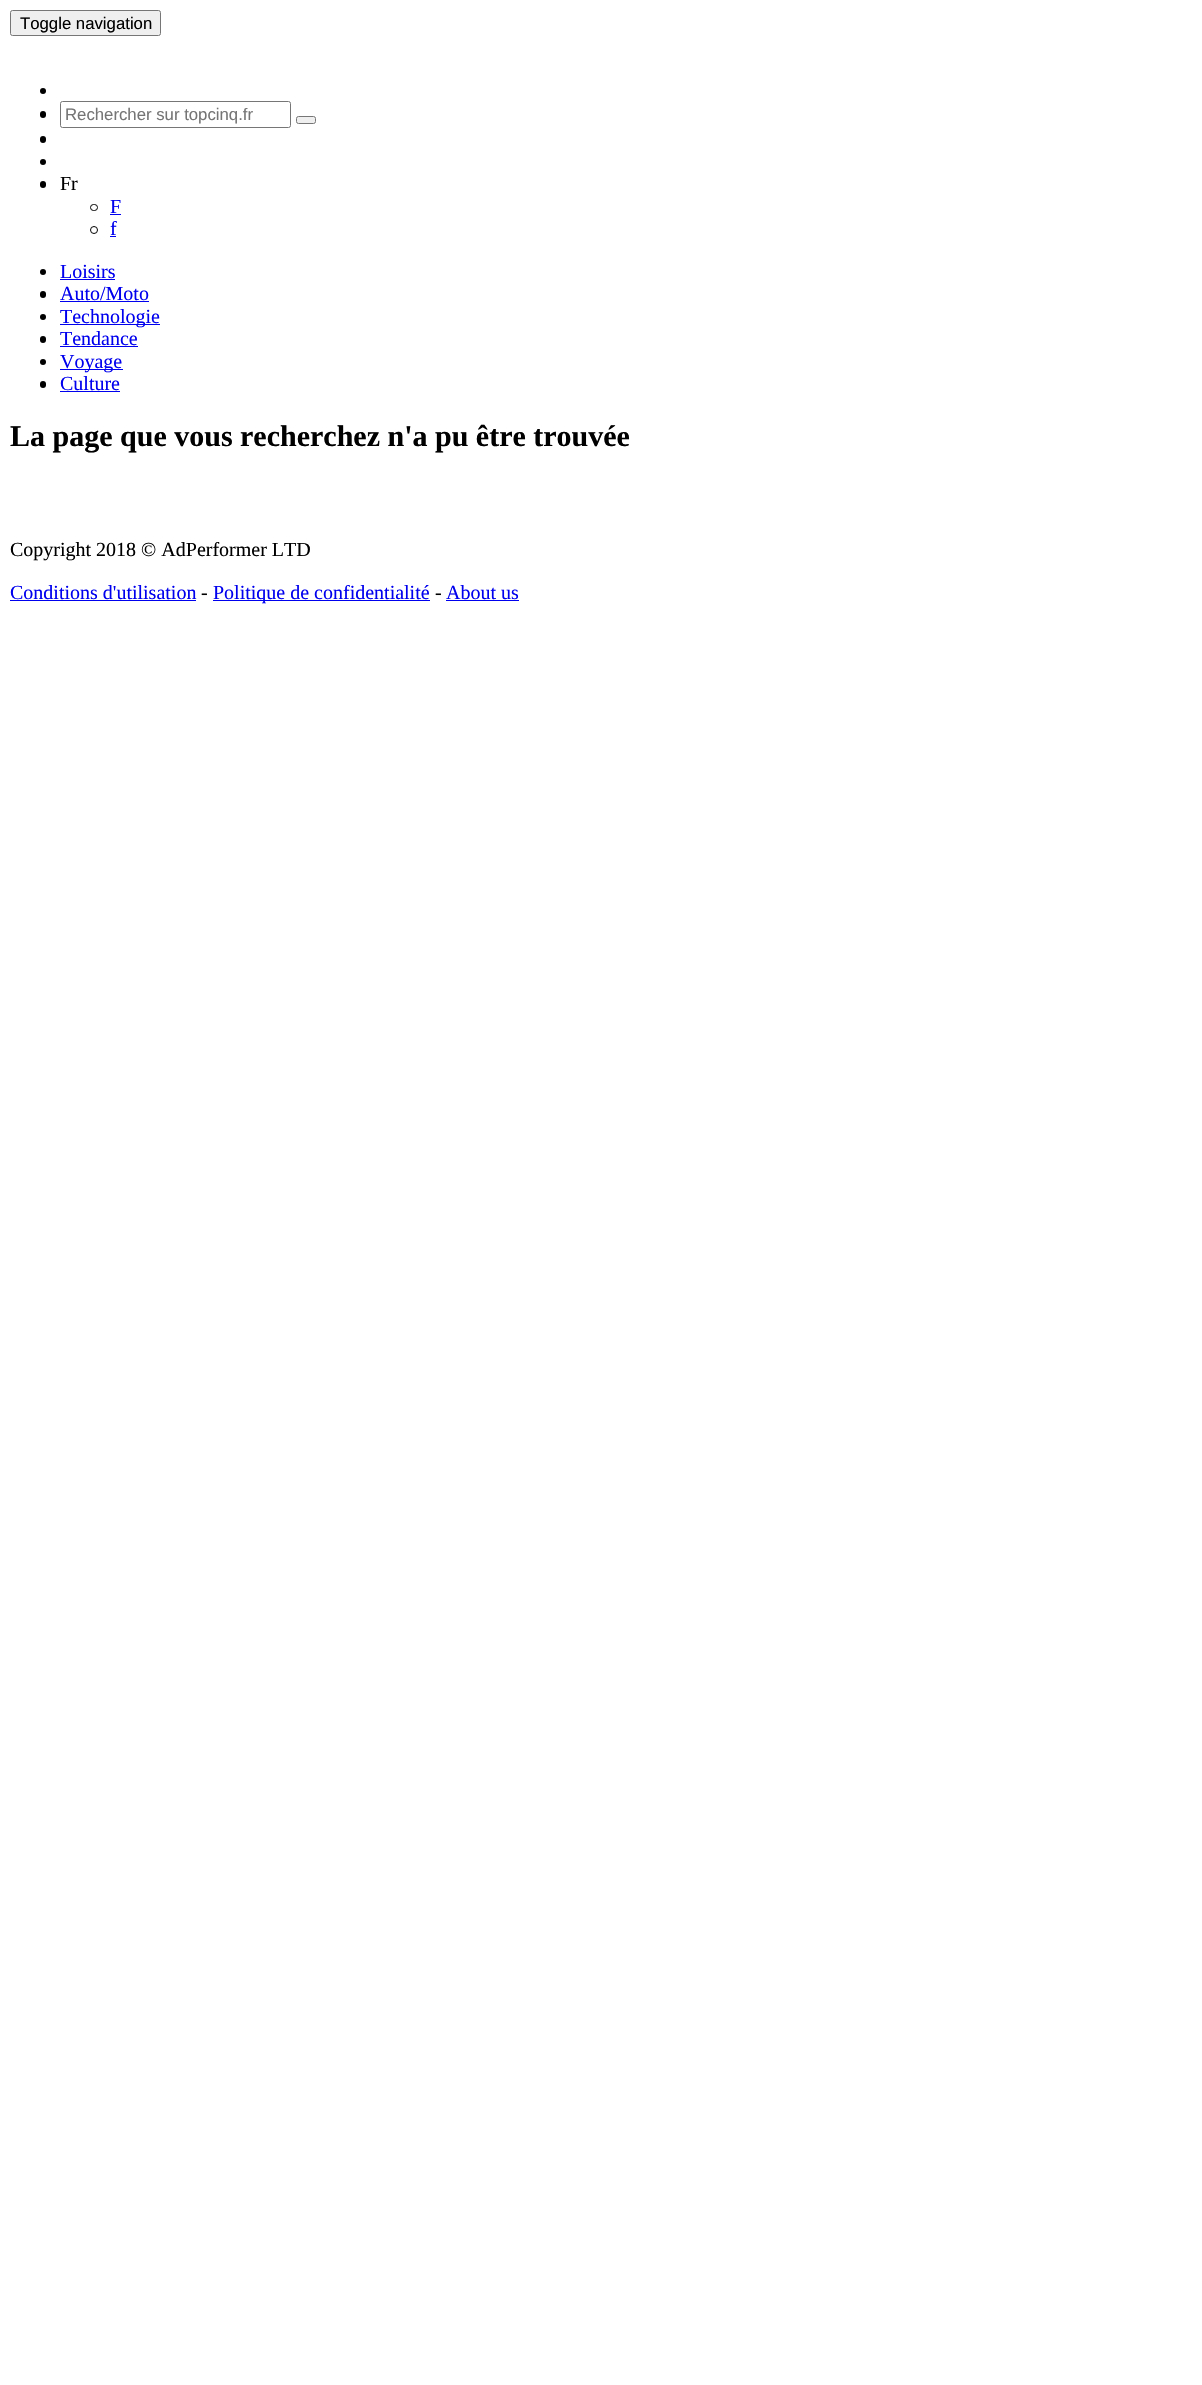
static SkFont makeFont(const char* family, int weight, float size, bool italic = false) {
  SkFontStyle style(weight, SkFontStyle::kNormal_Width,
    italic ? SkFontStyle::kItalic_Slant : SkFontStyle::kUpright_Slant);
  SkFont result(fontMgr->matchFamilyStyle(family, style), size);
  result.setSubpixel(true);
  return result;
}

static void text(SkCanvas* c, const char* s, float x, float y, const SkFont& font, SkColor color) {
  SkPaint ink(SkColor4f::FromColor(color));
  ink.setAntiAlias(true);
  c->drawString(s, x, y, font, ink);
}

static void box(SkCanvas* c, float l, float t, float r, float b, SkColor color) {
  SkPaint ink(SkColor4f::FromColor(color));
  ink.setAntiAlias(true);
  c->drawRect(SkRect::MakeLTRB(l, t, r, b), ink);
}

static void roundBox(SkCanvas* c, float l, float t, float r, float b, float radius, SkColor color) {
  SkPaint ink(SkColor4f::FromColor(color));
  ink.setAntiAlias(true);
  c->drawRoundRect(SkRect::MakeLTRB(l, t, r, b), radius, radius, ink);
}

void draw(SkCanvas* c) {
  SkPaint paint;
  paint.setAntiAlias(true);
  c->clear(0xffffffff);
  paint.setColor(0xffefefef);
  c->drawRoundRect(SkRect::MakeLTRB(10.5f, 10.5f, 160.5f, 35.5f), 2, 2, paint);
  paint.setStyle(SkPaint::kStroke_Style);
  paint.setStrokeWidth(1);
  paint.setColor(0xff767676);
  c->drawRoundRect(SkRect::MakeLTRB(10.5f, 10.5f, 160.5f, 35.5f), 2, 2, paint);
  SkFont face1 = makeFont("Liberation Sans", 400, 16.75f);
  text(c, "Toggle navigation", 20, 29, face1, 0xff000000);
  paint.setStyle(SkPaint::kFill_Style);
  paint.setColor(0xff000000);
  c->drawCircle(43, 91, 3, paint);
  roundBox(c, 40, 111, 46, 118, 3, 0xff000000);
  paint.setStyle(SkPaint::kStroke_Style);
  paint.setColor(0xff767676);
  c->drawRoundRect(SkRect::MakeLTRB(60.5f, 101.5f, 290.5f, 127.5f), 2, 2, paint);
  text(c, "Rechercher sur topcinq.fr", 65, 120, face1, 0xff757575);
  paint.setStyle(SkPaint::kFill_Style);
  paint.setColor(0xffefefef);
  c->drawRoundRect(SkRect::MakeLTRB(296.5f, 116.5f, 315.5f, 123.5f), 2, 2, paint);
  paint.setStyle(SkPaint::kStroke_Style);
  paint.setColor(0xff767676);
  c->drawRoundRect(SkRect::MakeLTRB(296.5f, 116.5f, 315.5f, 123.5f), 2, 2, paint);
  roundBox(c, 40, 136, 46, 143, 3, 0xff000000);
  paint.setStyle(SkPaint::kFill_Style);
  paint.setColor(0xff000000);
  c->drawCircle(43, 162, 3, paint);
  roundBox(c, 40, 181, 46, 188, 3, 0xff000000);
  SkFont face2 = makeFont("Liberation Serif", 400, 20);
  text(c, "Fr", 60, 190, face2, 0xff000000);
  paint.setStyle(SkPaint::kStroke_Style);
  c->drawRoundRect(SkRect::MakeLTRB(90.5f, 204.5f, 97.5f, 210.5f), 3, 3, paint);
  text(c, "F", 110, 213, face2, 0xff0000ee);
  box(c, 110, 214, 121, 215, 0xff0000ee);
  c->drawCircle(94, 230, 3.5f, paint);
  text(c, "f", 110, 235, face2, 0xff0000ee);
  box(c, 110, 236, 116, 237, 0xff0000ee);
  paint.setStyle(SkPaint::kFill_Style);
  c->drawCircle(43, 272, 3, paint);
  text(c, "Loisirs", 60, 278, face2, 0xff0000ee);
  box(c, 60, 279, 115, 280, 0xff0000ee);
  roundBox(c, 40, 291, 46, 298, 3, 0xff000000);
  text(c, "Auto/Moto", 60, 300, face2, 0xff0000ee);
  box(c, 60, 301, 149, 302, 0xff0000ee);
  c->drawCircle(43, 317, 3, paint);
  box(c, 60, 324, 160, 325, 0xff0000ee);
  text(c, "Technologie", 60, 323, face2, 0xff0000ee);
  roundBox(c, 40, 336, 46, 343, 3, 0xff000000);
  text(c, "Tendance", 60, 345, face2, 0xff0000ee);
  box(c, 60, 346, 138, 347, 0xff0000ee);
  c->drawCircle(43, 362, 3, paint);
  box(c, 60, 369, 123, 370, 0xff0000ee);
  text(c, "Voyage", 60, 368, face2, 0xff0000ee);
  roundBox(c, 40, 381, 46, 388, 3, 0xff000000);
  text(c, "Culture", 60, 390, face2, 0xff0000ee);
  box(c, 60, 391, 120, 392, 0xff0000ee);
  SkFont face3 = makeFont("Liberation Serif", 700, 30);
  text(c, "La page que vous recherchez n'a pu être trouvée", 10, 446, face3, 0xff000000);
  text(c, "Copyright 2018 © AdPerformer LTD", 10, 556, face2, 0xff000000);
  text(c, "Conditions d'utilisation", 10, 599, face2, 0xff0000ee);
  box(c, 10, 600, 196, 601, 0xff0000ee);
  text(c, "-", 201, 599, face2, 0xff000000);
  box(c, 213, 600, 430, 601, 0xff0000ee);
  text(c, "Politique de confidentialité", 213, 599, face2, 0xff0000ee);
  text(c, "-", 435, 599, face2, 0xff000000);
  text(c, "About us", 446, 599, face2, 0xff0000ee);
  box(c, 446, 600, 519, 601, 0xff0000ee);
}
